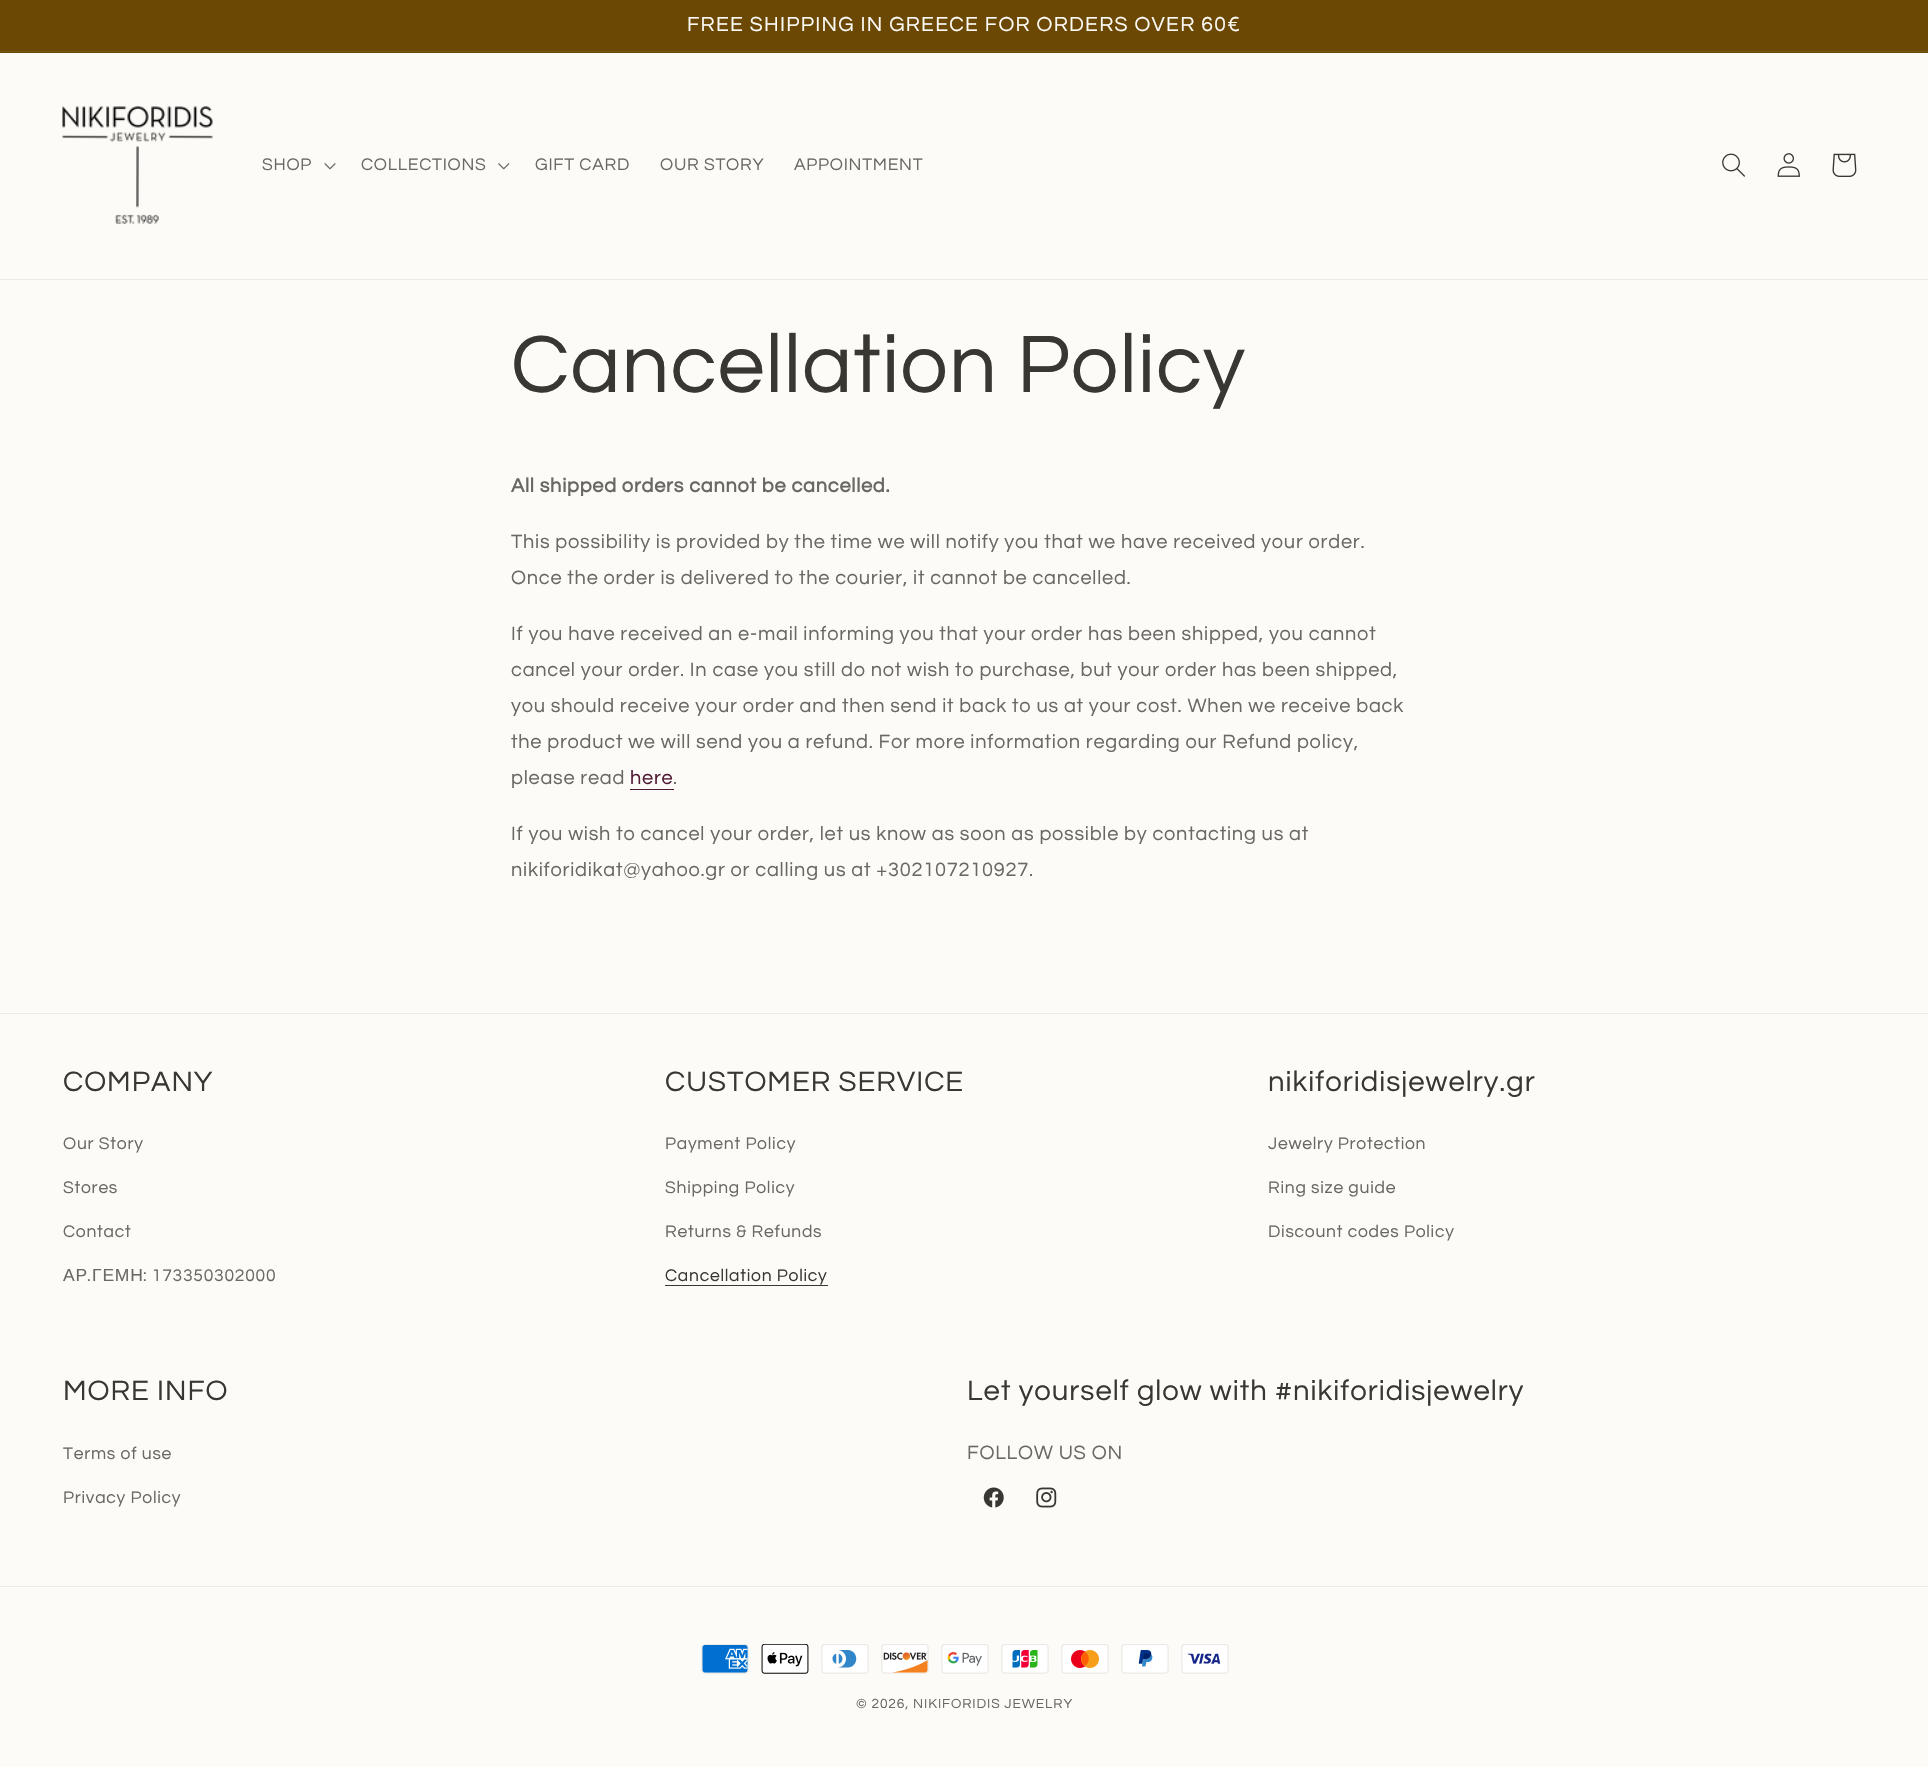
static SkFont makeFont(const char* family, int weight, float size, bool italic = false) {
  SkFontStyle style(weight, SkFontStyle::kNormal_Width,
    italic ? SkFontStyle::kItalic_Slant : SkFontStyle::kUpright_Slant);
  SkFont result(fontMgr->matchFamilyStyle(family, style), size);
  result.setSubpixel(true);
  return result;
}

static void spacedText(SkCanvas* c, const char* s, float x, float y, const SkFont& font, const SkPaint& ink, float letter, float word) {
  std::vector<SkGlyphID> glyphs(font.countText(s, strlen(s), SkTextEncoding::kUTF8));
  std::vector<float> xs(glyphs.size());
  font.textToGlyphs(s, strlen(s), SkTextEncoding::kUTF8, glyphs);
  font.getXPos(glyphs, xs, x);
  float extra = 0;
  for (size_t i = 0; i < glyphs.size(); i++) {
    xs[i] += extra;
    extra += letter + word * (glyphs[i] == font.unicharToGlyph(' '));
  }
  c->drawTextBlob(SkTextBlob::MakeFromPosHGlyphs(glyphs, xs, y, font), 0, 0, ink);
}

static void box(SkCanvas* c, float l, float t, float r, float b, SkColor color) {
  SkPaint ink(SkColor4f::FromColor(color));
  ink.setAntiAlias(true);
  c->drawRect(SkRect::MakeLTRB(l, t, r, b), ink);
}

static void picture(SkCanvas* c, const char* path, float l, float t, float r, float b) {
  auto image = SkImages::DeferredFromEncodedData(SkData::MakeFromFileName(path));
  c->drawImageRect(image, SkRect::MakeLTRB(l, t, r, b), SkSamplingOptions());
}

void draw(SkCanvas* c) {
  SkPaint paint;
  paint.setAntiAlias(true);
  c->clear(0xfffdfbf7);
  box(c, 0, 0, 1928, 53, 0xff6b4803);
  box(c, 0, 51, 1928, 52, 0xff775617);
  SkFont face1 = makeFont("Questrial", 400, 21.1f);
  paint.setColor(0xfffdfbf7);
  spacedText(c, "FREE SHIPPING IN GREECE FOR ORDERS OVER 60€", 687, 31, face1, paint, 1.25f, 0);
  box(c, 0, 279, 1928, 280, 0xffedebe7);
  picture(c, "img_01.png", 62, 106, 213, 224);
  SkFont face2 = makeFont("Questrial", 400, 17.5f);
  paint.setColor(0xff6a6863);
  spacedText(c, "SHOP", 262, 170, face2, paint, 0.75f, 0);
  picture(c, "img_02.png", 324, 163, 336, 170);
  spacedText(c, "COLLECTIONS", 361, 170, face2, paint, 0.75f, 0);
  picture(c, "img_03.png", 498, 163, 510, 170);
  spacedText(c, "GIFT CARD", 535, 170, face2, paint, 0.75f, 0);
  spacedText(c, "OUR STORY", 660, 170, face2, paint, 0.75f, 0);
  spacedText(c, "APPOINTMENT", 794, 170, face2, paint, 0.75f, 0);
  picture(c, "img_04.png", 1722, 153, 1745, 177);
  picture(c, "img_05.png", 1777, 153, 1800, 177);
  picture(c, "img_06.png", 1832, 153, 1857, 177);
  SkFont face3 = makeFont("Questrial", 400, 84.5f);
  paint.setColor(0xff393732);
  spacedText(c, "Cancellation Policy", 511, 392, face3, paint, 1, 0);
  SkFont face4 = makeFont("Questrial", 700, 20);
  paint.setColor(0xff6a6863);
  spacedText(c, "All shipped orders cannot be cancelled.", 511, 492, face4, paint, 0.75f, 0);
  SkFont face5 = makeFont("Questrial", 400, 20);
  spacedText(c, "This possibility is provided by the time we will notify you that we have received your order.", 511, 548, face5, paint, 0.75f, 0);
  spacedText(c, "Once the order is delivered to the courier, it cannot be cancelled.", 511, 584, face5, paint, 0.75f, 0);
  spacedText(c, "If you have received an e-mail informing you that your order has been shipped, you cannot", 511, 640, face5, paint, 0.75f, 0);
  spacedText(c, "cancel your order. In case you still do not wish to purchase, but your order has been shipped,", 511, 676, face5, paint, 0.75f, 0);
  spacedText(c, "you should receive your order and then send it back to us at your cost. When we receive back", 511, 712, face5, paint, 0.75f, 0);
  spacedText(c, "the product we will send you a refund. For more information regarding our Refund policy,", 511, 748, face5, paint, 0.75f, 0);
  spacedText(c, "please read", 511, 784, face5, paint, 0.75f, 0);
  paint.setColor(0xff501a35);
  spacedText(c, "here", 630, 784, face5, paint, 0.75f, 0);
  box(c, 630, 789, 674, 790, 0xff501a35);
  paint.setColor(0xff6a6863);
  spacedText(c, ".", 673, 784, face5, paint, 0.75f, 0);
  spacedText(c, "If you wish to cancel your order, let us know as soon as possible by contacting us at", 511, 840, face5, paint, 0.75f, 0);
  spacedText(c, "nikiforidikat@yahoo.gr or calling us at +302107210927.", 511, 876, face5, paint, 0.75f, 0);
  box(c, 0, 1013, 1928, 1014, 0xffedebe7);
  SkFont face6 = makeFont("Questrial", 400, 29.25f);
  paint.setColor(0xff393732);
  spacedText(c, "COMPANY", 63, 1091, face6, paint, 1, 0);
  paint.setColor(0xff6a6863);
  spacedText(c, "Our Story", 63, 1149, face2, paint, 0.75f, 0);
  spacedText(c, "Stores", 63, 1193, face2, paint, 0.75f, 0);
  spacedText(c, "Contact", 63, 1237, face2, paint, 0.75f, 0);
  SkFont face7 = makeFont("Liberation Sans", 400, 17.5f);
  spacedText(c, "ΑΡ", 63, 1281, face7, paint, 0.75f, 0);
  spacedText(c, ".", 87, 1281, face2, paint, 0.75f, 0);
  spacedText(c, "ΓΕΜΗ", 92, 1281, face7, paint, 0.75f, 0);
  spacedText(c, ": 173350302000", 143, 1281, face2, paint, 0.75f, 0);
  paint.setColor(0xff393732);
  spacedText(c, "CUSTOMER SERVICE", 665, 1091, face6, paint, 1, 0);
  paint.setColor(0xff6a6863);
  spacedText(c, "Payment Policy", 665, 1149, face2, paint, 0.75f, 0);
  spacedText(c, "Shipping Policy", 665, 1193, face2, paint, 0.75f, 0);
  spacedText(c, "Returns & Refunds", 665, 1237, face2, paint, 0.75f, 0);
  paint.setColor(0xff393732);
  spacedText(c, "Cancellation Policy", 665, 1281, face2, paint, 0.75f, 0);
  box(c, 665, 1285, 828, 1286, 0xff393732);
  spacedText(c, "nikiforidisjewelry.gr", 1268, 1091, face6, paint, 1, 0);
  paint.setColor(0xff6a6863);
  spacedText(c, "Jewelry Protection", 1268, 1149, face2, paint, 0.75f, 0);
  spacedText(c, "Ring size guide", 1268, 1193, face2, paint, 0.75f, 0);
  spacedText(c, "Discount codes Policy", 1268, 1237, face2, paint, 0.75f, 0);
  paint.setColor(0xff393732);
  spacedText(c, "MORE INFO", 63, 1400, face6, paint, 1, 0);
  paint.setColor(0xff6a6863);
  spacedText(c, "Terms of use", 63, 1459, face2, paint, 0.75f, 0);
  spacedText(c, "Privacy Policy", 63, 1503, face2, paint, 0.75f, 0);
  paint.setColor(0xff393732);
  spacedText(c, "Let yourself glow with #nikiforidisjewelry", 967, 1400, face6, paint, 1, 0);
  paint.setColor(0xff6a6863);
  spacedText(c, "FOLLOW US ON", 967, 1459, face5, paint, 0.75f, 0);
  picture(c, "img_07.png", 983, 1487, 1004, 1508);
  picture(c, "img_08.png", 1036, 1487, 1057, 1508);
  box(c, 0, 1586, 1928, 1587, 0xffedebe7);
  picture(c, "img_09.png", 701, 1644, 749, 1674);
  picture(c, "img_10.png", 761, 1644, 809, 1674);
  picture(c, "img_11.png", 821, 1644, 869, 1674);
  picture(c, "img_12.png", 881, 1644, 929, 1674);
  picture(c, "img_13.png", 941, 1644, 989, 1674);
  picture(c, "img_14.png", 1001, 1644, 1049, 1674);
  picture(c, "img_15.png", 1061, 1644, 1109, 1674);
  picture(c, "img_16.png", 1121, 1644, 1169, 1674);
  picture(c, "img_17.png", 1181, 1644, 1229, 1674);
  SkFont face8 = makeFont("Questrial", 400, 13.75f);
  spacedText(c, "© 2026, NIKIFORIDIS JEWELRY", 856, 1708, face8, paint, 0.9f, 0);
}
